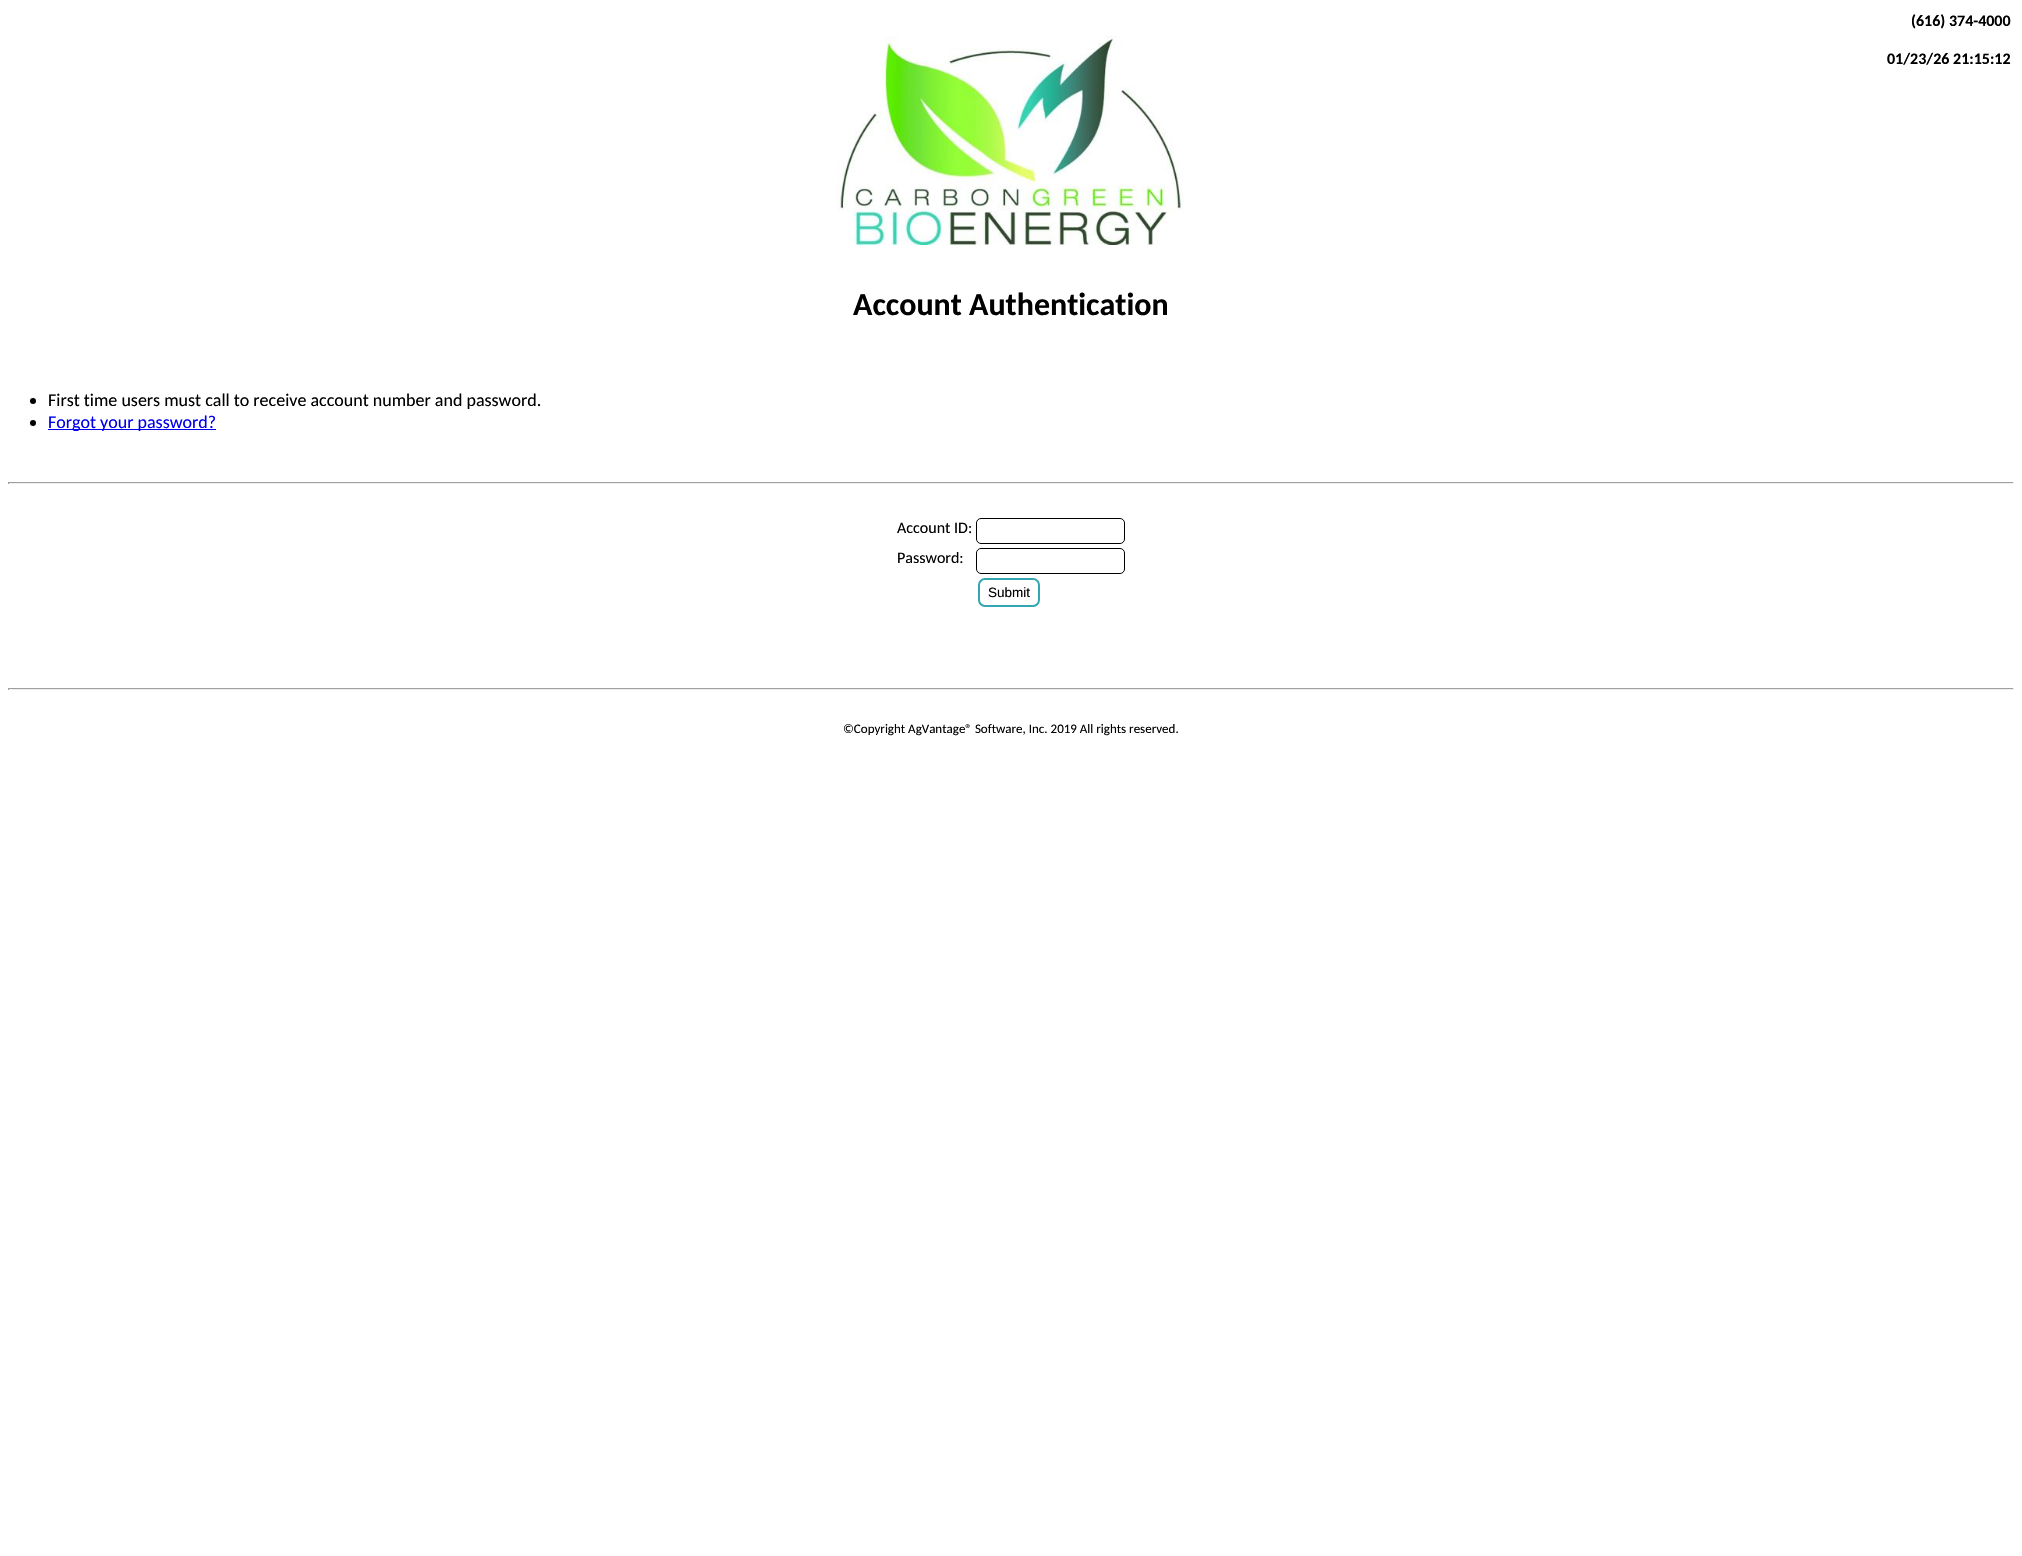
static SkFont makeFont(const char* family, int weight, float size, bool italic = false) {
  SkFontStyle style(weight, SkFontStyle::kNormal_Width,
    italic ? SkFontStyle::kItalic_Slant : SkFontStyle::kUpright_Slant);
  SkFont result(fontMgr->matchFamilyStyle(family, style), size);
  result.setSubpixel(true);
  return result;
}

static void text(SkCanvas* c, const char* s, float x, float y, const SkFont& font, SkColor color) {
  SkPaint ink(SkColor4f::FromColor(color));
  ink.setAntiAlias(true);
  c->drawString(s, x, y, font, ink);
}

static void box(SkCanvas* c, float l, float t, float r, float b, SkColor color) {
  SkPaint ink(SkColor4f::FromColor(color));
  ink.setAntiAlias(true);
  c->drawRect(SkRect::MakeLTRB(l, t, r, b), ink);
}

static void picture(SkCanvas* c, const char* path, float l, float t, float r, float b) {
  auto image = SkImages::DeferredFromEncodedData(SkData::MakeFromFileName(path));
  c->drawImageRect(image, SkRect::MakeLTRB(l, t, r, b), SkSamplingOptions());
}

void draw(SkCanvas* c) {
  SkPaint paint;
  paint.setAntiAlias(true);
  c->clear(0xffffffff);
  SkFont face1 = makeFont("Carlito", 700, 16);
  text(c, "(616) 374-4000", 1911, 26, face1, 0xff000000);
  text(c, "01/23/26 21:15:12", 1887, 64, face1, 0xff000000);
  picture(c, "img_01.png", 836, 36, 1184, 245);
  SkFont face2 = makeFont("Carlito", 700, 32);
  text(c, "Account Authentication", 853, 315, face2, 0xff000000);
  paint.setColor(0xff000000);
  c->drawCircle(33, 401, 3, paint);
  SkFont face3 = makeFont("Carlito", 400, 18);
  text(c, "First time users must call to receive account number and password.", 48, 406, face3, 0xff000000);
  c->drawCircle(33, 423, 3, paint);
  box(c, 48, 429, 216, 430, 0xff0000ee);
  text(c, "Forgot your password?", 48, 428, face3, 0xff0000ee);
  box(c, 8, 482, 2014, 483, 0xff9f9f9f);
  box(c, 2013, 482, 2014, 484, 0xffeeeeee);
  box(c, 8, 483, 2014, 484, 0xffeeeeee);
  box(c, 8, 482, 9, 484, 0xff9f9f9f);
  SkFont face4 = makeFont("Carlito", 400, 16);
  text(c, "Account ID:", 897, 533, face4, 0xff000000);
  paint.setStyle(SkPaint::kStroke_Style);
  paint.setStrokeWidth(1);
  c->drawRoundRect(SkRect::MakeLTRB(976.5f, 518.5f, 1124.5f, 543.5f), 4.5f, 4.5f, paint);
  text(c, "Password:", 897, 563, face4, 0xff000000);
  c->drawRoundRect(SkRect::MakeLTRB(976.5f, 548.5f, 1124.5f, 573.5f), 4.5f, 4.5f, paint);
  paint.setStrokeWidth(2);
  paint.setColor(0xff33a6b2);
  c->drawRoundRect(SkRect::MakeLTRB(979, 579, 1039, 606), 6, 6, paint);
  SkFont face5 = makeFont("Liberation Sans", 400, 13.5f);
  text(c, "Submit", 988, 597, face5, 0xff000000);
  box(c, 8, 688, 2014, 689, 0xff9f9f9f);
  box(c, 2013, 688, 2014, 690, 0xffeeeeee);
  box(c, 8, 689, 2014, 690, 0xffeeeeee);
  box(c, 8, 688, 9, 690, 0xff9f9f9f);
  SkFont face6 = makeFont("Carlito", 400, 13);
  text(c, "©Copyright AgVantage® Software, Inc. 2019 All rights reserved.", 843, 733, face6, 0xff000000);
}
